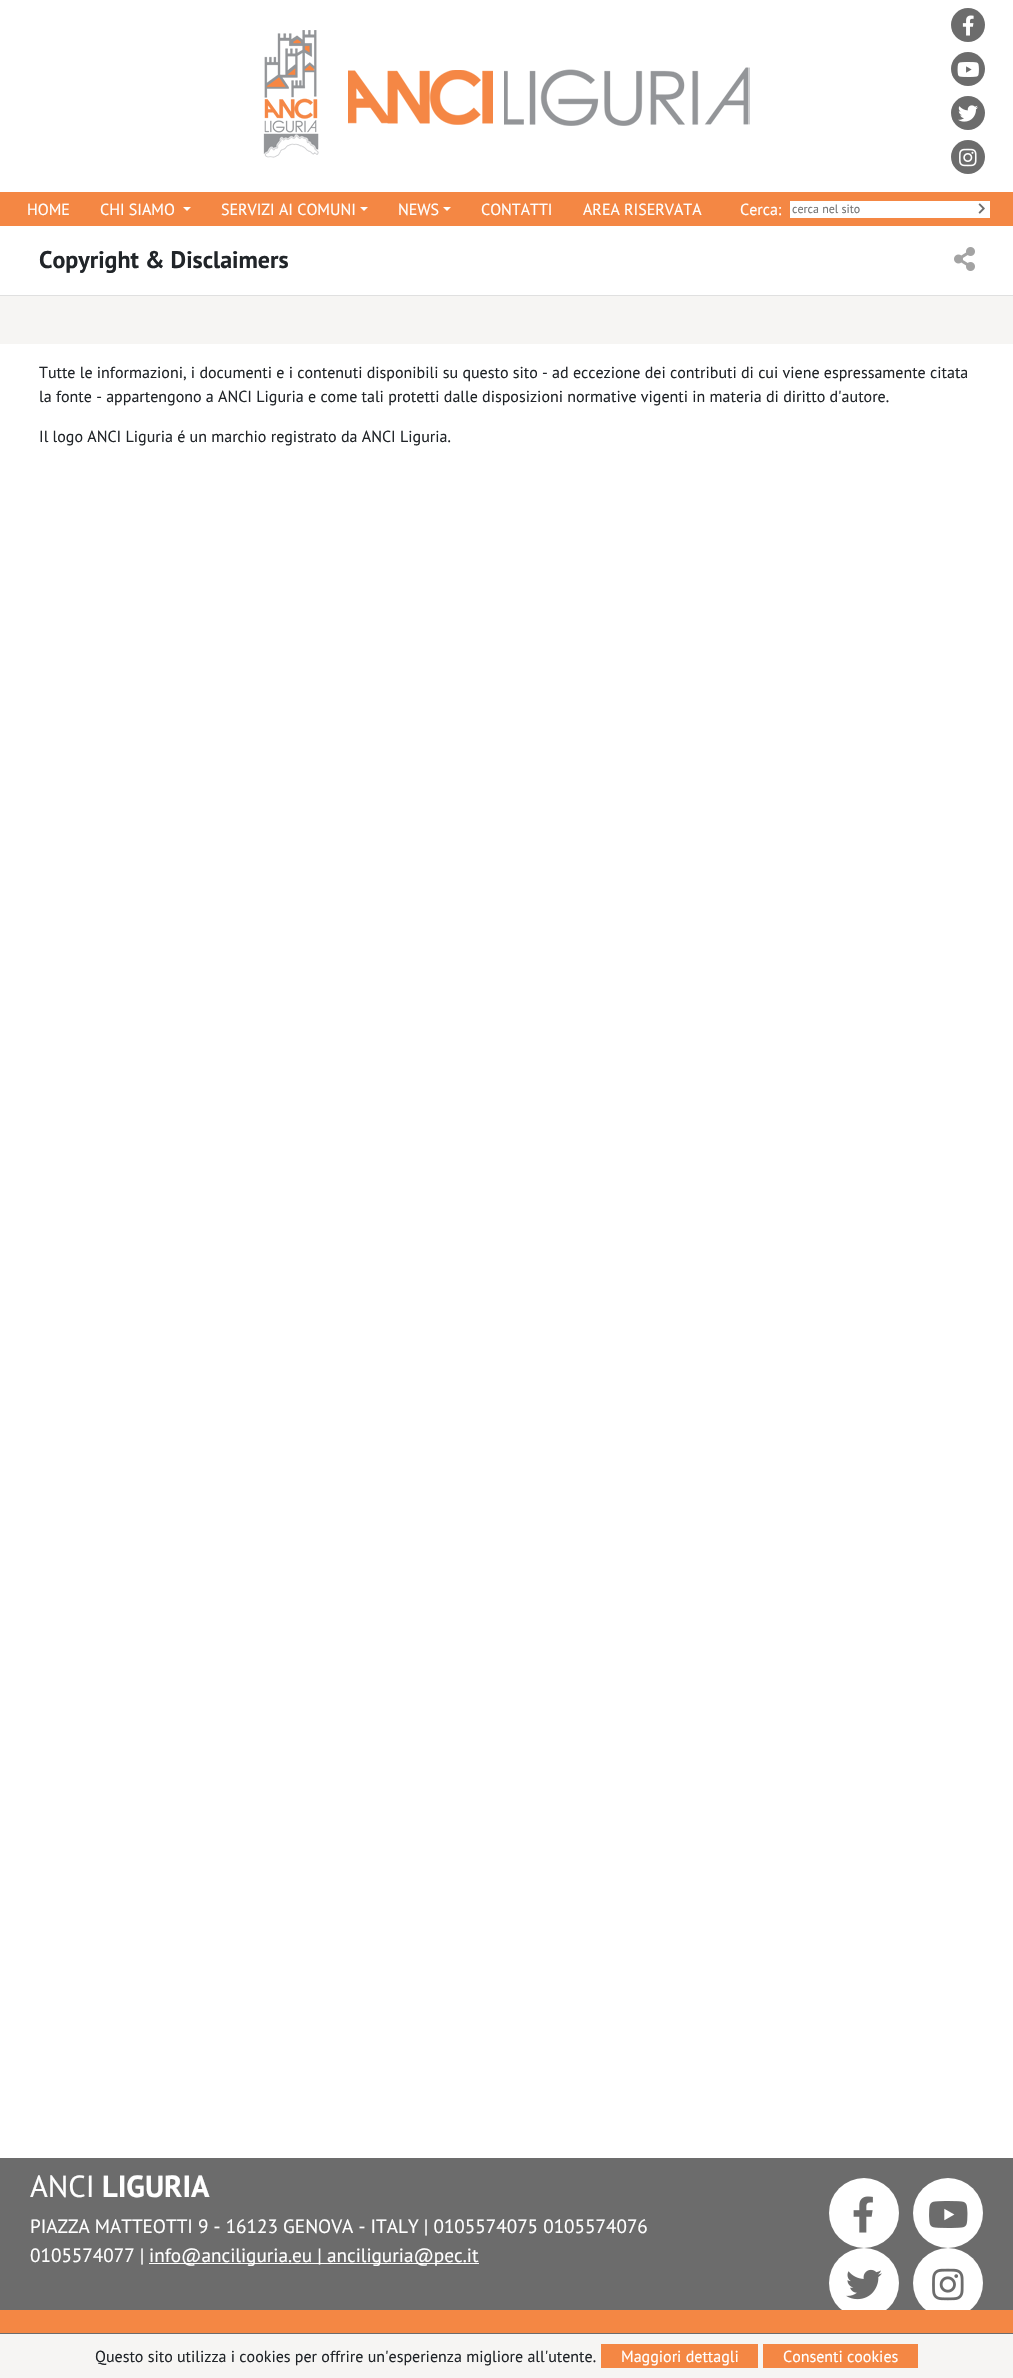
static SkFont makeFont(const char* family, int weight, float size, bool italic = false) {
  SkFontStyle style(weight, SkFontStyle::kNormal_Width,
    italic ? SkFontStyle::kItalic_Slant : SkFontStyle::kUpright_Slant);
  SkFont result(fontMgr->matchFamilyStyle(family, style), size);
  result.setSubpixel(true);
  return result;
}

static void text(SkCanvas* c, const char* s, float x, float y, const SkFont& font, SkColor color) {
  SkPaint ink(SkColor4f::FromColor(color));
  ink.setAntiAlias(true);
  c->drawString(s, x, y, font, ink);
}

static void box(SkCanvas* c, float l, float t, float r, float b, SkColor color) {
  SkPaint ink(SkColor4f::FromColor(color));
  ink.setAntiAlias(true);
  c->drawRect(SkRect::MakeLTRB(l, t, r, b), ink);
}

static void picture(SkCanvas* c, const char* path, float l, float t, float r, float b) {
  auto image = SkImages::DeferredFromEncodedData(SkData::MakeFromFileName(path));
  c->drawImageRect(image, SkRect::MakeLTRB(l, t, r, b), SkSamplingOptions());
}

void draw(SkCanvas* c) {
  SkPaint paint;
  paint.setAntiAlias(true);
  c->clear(0xffffffff);
  picture(c, "img_01.png", 263, 30, 750, 158);
  paint.setColor(0xff6c6c6c);
  c->drawCircle(968, 25, 17, paint);
  picture(c, "img_02.png", 962, 15, 974, 36);
  c->drawCircle(968, 69, 17, paint);
  picture(c, "img_03.png", 957, 62, 979, 77);
  c->drawCircle(968, 113, 17, paint);
  picture(c, "img_04.png", 958, 105, 978, 122);
  c->drawCircle(968, 157, 17, paint);
  picture(c, "img_05.png", 959, 148, 977, 167);
  box(c, 0, 192, 1013, 226, 0xfff48744);
  SkFont face1 = makeFont("PT Sans", 400, 16);
  text(c, "HOME", 27, 215, face1, 0xffffffff);
  text(c, "CHI SIAMO", 100, 215, face1, 0xffffffff);
  paint.setColor(0xffffffff);
  c->drawPath(SkPathBuilder().moveTo(183, 207).lineTo(191, 207).lineTo(187, 211).close().detach(), paint);
  text(c, "SERVIZI AI COMUNI", 221, 215, face1, 0xffffffff);
  c->drawPath(SkPathBuilder().moveTo(360, 207).lineTo(368, 207).lineTo(364, 211).close().detach(), paint);
  text(c, "NEWS", 398, 215, face1, 0xffffffff);
  c->drawPath(SkPathBuilder().moveTo(443, 207).lineTo(451, 207).lineTo(447, 211).close().detach(), paint);
  text(c, "CONTATTI", 481, 215, face1, 0xffffffff);
  text(c, "AREA RISERVATA", 583, 215, face1, 0xffffffff);
  text(c, "Cerca:", 740, 215, face1, 0xffffffff);
  box(c, 790, 201, 990, 218, 0xffffffff);
  SkFont face2 = makeFont("PT Sans", 400, 12);
  text(c, "cerca nel sito", 792, 213, face2, 0xff757575);
  picture(c, "img_06.png", 978, 203, 985, 214);
  SkFont face3 = makeFont("PT Sans", 700, 24);
  text(c, "Copyright & Disclaimers", 39, 268, face3, 0xff212529);
  picture(c, "img_07.png", 954, 247, 975, 271);
  box(c, 0, 296, 1013, 344, 0xfff6f5f3);
  box(c, 0, 295, 1013, 296, 0xffe0e0e0);
  text(c, "Tutte le informazioni, i documenti e i contenuti disponibili su questo sito - ad eccezione dei contributi di cui viene espressamente citata", 39, 378, face1, 0xff212529);
  text(c, "la fonte - appartengono a ANCI Liguria e come tali protetti dalle disposizioni normative vigenti in materia di diritto d'autore.", 39, 402, face1, 0xff212529);
  text(c, "Il logo ANCI Liguria é un marchio registrato da ANCI Liguria.", 39, 442, face1, 0xff212529);
  box(c, 0, 2158, 1013, 2310, 0xff6c6c6c);
  SkFont face4 = makeFont("PT Sans", 400, 30.5f);
  text(c, "ANCI", 30, 2197, face4, 0xffffffff);
  SkFont face5 = makeFont("PT Sans", 700, 30.5f);
  text(c, "LIGURIA", 102, 2197, face5, 0xffffffff);
  SkFont face6 = makeFont("PT Sans", 400, 19.2f);
  text(c, "PIAZZA MATTEOTTI 9 - 16123 GENOVA - ITALY | 0105574075 0105574076", 30, 2233, face6, 0xffffffff);
  text(c, "0105574077 |", 30, 2262, face6, 0xffffffff);
  box(c, 149, 2263, 479, 2264, 0xffffffff);
  text(c, "info@anciliguria.eu | anciliguria@pec.it", 149, 2262, face6, 0xffffffff);
  c->drawCircle(864, 2213, 35, paint);
  picture(c, "img_08.png", 853, 2196, 873, 2233);
  c->drawCircle(948, 2213, 35, paint);
  picture(c, "img_09.png", 929, 2201, 968, 2228);
  c->drawCircle(864, 2283, 35, paint);
  picture(c, "img_10.png", 846, 2269, 882, 2300);
  c->drawCircle(948, 2283, 35, paint);
  picture(c, "img_11.png", 932, 2268, 964, 2301);
  box(c, 0, 2310, 1013, 2333, 0xfff48744);
  box(c, 0, 2334, 1013, 2378, 0xfff6f5f3);
  box(c, 0, 2333, 1013, 2334, 0xff6c6c6c);
  text(c, "Questo sito utilizza i cookies per offrire un'esperienza migliore all'utente.", 95, 2362, face1, 0xff212529);
  box(c, 601, 2344, 758, 2368, 0xfff48744);
  text(c, "Maggiori dettagli", 621, 2362, face1, 0xffffffff);
  box(c, 763, 2344, 918, 2368, 0xfff48744);
  text(c, "Consenti cookies", 783, 2362, face1, 0xffffffff);
}
